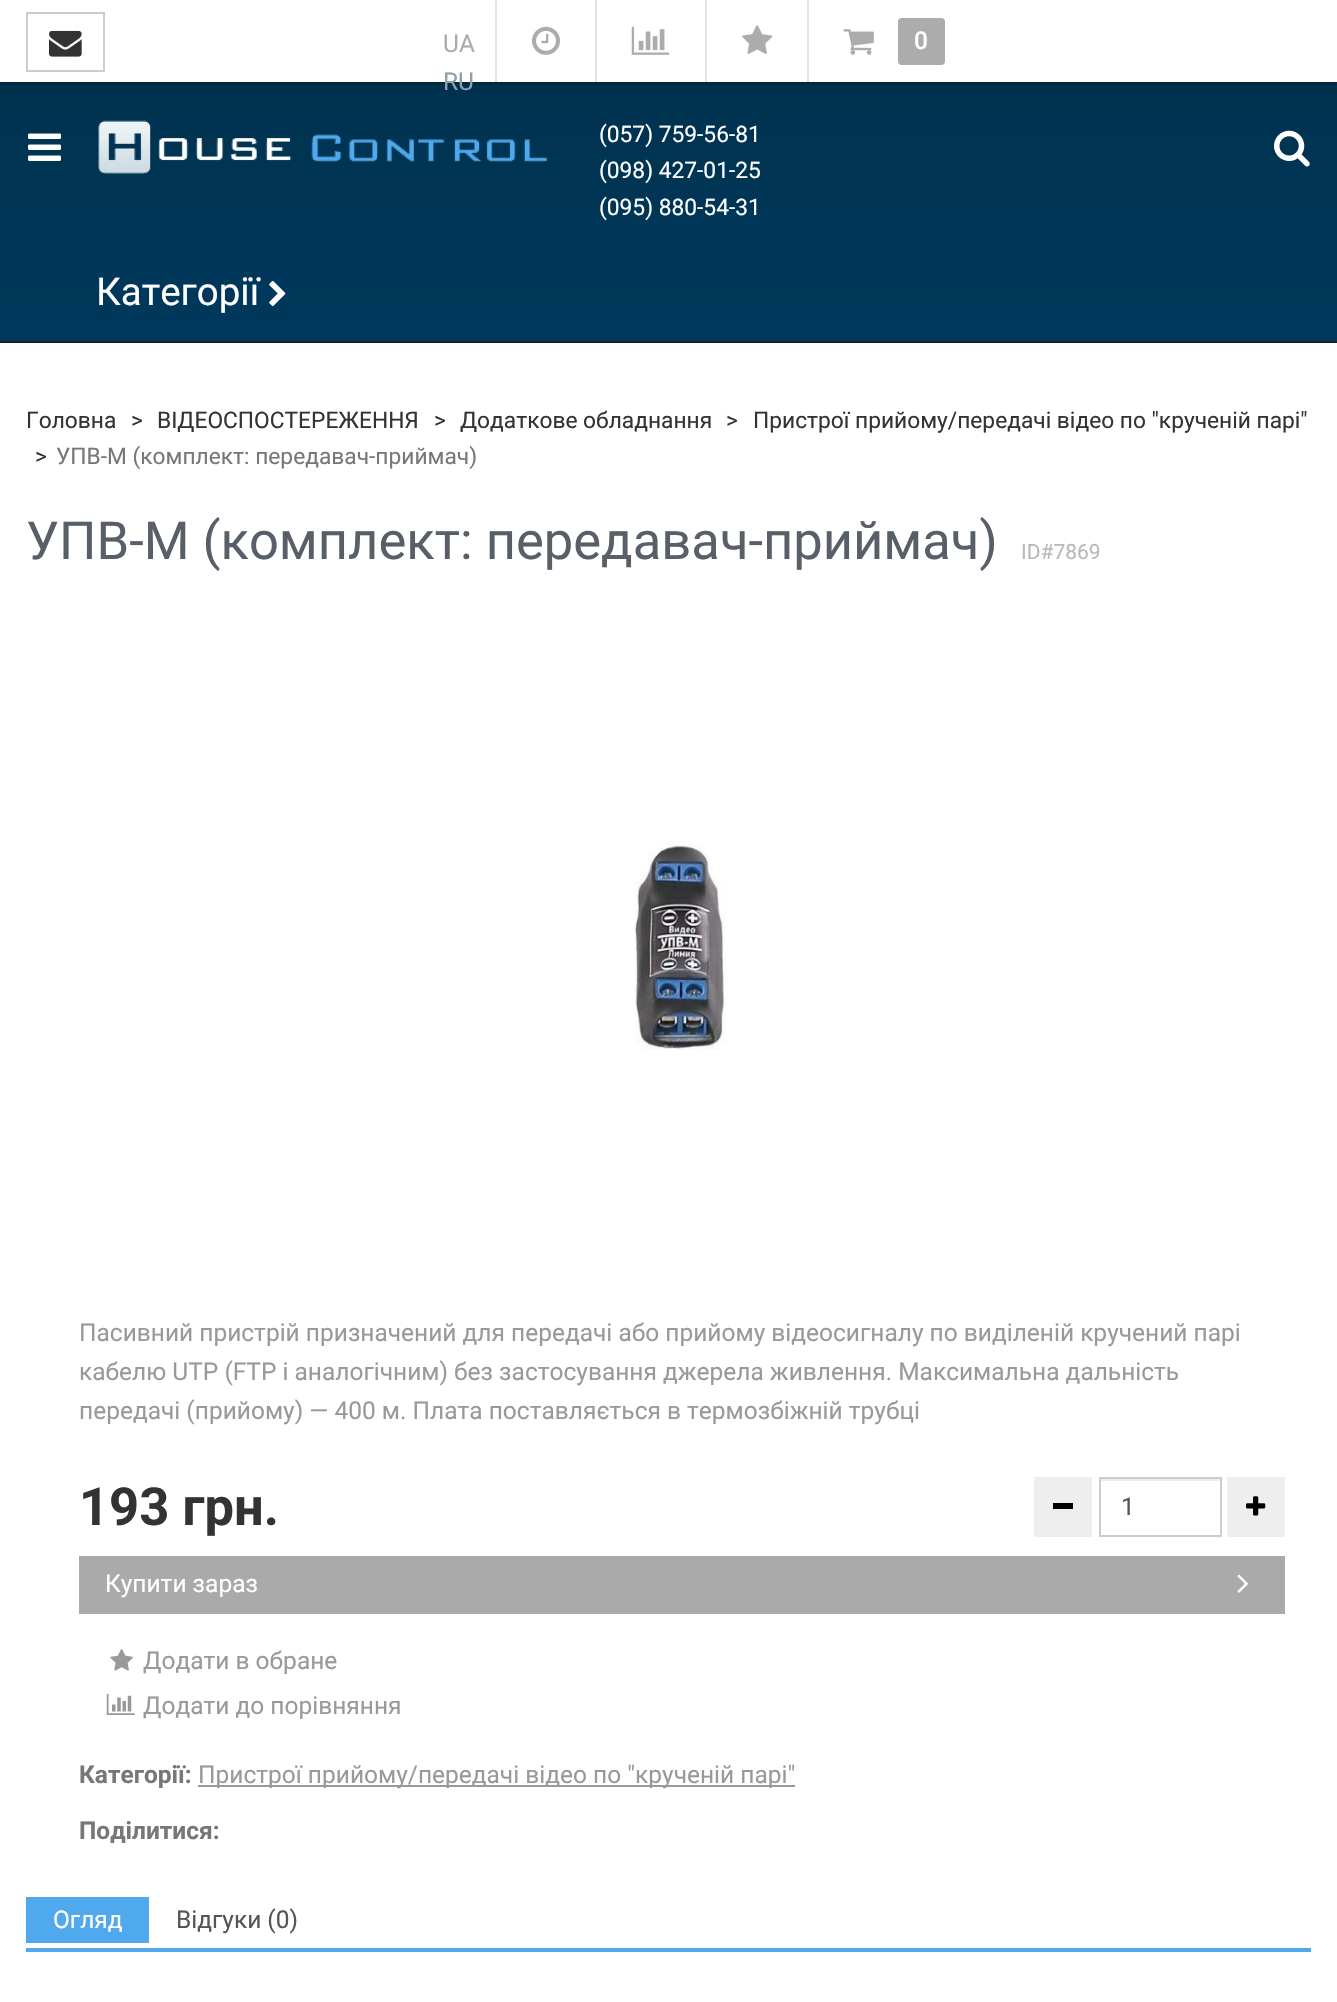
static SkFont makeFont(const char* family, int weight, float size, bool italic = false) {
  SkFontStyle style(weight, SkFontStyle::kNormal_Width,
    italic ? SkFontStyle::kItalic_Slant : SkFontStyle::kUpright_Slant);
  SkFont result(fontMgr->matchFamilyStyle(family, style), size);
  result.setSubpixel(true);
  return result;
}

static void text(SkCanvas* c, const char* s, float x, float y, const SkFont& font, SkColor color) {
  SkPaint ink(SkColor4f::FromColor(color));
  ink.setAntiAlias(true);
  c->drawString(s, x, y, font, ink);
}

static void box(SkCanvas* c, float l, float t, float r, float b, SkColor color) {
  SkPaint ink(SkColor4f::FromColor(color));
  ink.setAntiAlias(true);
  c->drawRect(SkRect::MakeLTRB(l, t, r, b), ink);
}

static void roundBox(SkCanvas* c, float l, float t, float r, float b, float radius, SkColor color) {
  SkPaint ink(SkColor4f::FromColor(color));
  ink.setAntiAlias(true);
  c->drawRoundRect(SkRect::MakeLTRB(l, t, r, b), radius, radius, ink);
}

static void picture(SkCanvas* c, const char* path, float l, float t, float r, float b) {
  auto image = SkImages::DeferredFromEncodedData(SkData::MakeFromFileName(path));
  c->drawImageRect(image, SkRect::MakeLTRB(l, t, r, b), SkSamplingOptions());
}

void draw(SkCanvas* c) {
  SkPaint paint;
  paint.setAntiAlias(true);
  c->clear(0xffffffff);
  {
    const SkColor colors[] = {0xff00324e, 0xff00395e};
    const float stops[] = {0, 1};
    const SkPoint ends[] = {{669, 79}, {669, 341}};
    paint.setShader(SkGradientShader::MakeLinear(ends, colors, stops, 2, SkTileMode::kClamp));
    paint.setAlpha(255);
  }
  c->drawRect(SkRect::MakeLTRB(0, 82, 1337, 341), paint);
  paint.setShader(nullptr);
  paint.setColor(0xff000000);
  paint.setMaskFilter(SkMaskFilter::MakeBlur(kNormal_SkBlurStyle, 4.5f));
  c->drawRect(SkRect::MakeLTRB(0, -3, 1337, 79), paint);
  paint.setMaskFilter(nullptr);
  box(c, 0, 0, 1337, 82, 0xffffffff);
  paint.setStyle(SkPaint::kStroke_Style);
  paint.setStrokeWidth(2);
  paint.setColor(0xffcccccc);
  c->drawRect(SkRect::MakeLTRB(27, 13, 104, 71), paint);
  picture(c, "img_01.png", 49, 30, 82, 57);
  box(c, 495, 0, 497, 82, 0xffe4e4e4);
  SkFont face1 = makeFont("Roboto", 400, 24.5f);
  text(c, "UA", 443, 52, face1, 0xffacacac);
  text(c, "RU", 443, 90, face1, 0xff8ca1ad);
  box(c, 595, 0, 597, 82, 0xffe4e4e4);
  picture(c, "img_02.png", 532, 26, 560, 55);
  box(c, 705, 0, 707, 82, 0xffe4e4e4);
  picture(c, "img_03.png", 631, 26, 670, 55);
  box(c, 807, 0, 809, 82, 0xffe4e4e4);
  picture(c, "img_04.png", 742, 25, 773, 54);
  picture(c, "img_05.png", 843, 29, 874, 55);
  roundBox(c, 898, 18, 945, 65, 4, 0xffacacac);
  SkFont face2 = makeFont("Roboto", 500, 24.5f);
  text(c, "0", 914, 49, face2, 0xffffffff);
  box(c, 0, 341, 1337, 343, 0xff1f201b);
  picture(c, "img_06.png", 28, 133, 61, 161);
  picture(c, "img_07.png", 98, 120, 548, 174);
  SkFont face3 = makeFont("Roboto", 400, 22.75f);
  text(c, "(057) 759-56-81", 599, 142, face3, 0xffffffff);
  text(c, "(098) 427-01-25", 599, 178, face3, 0xffffffff);
  text(c, "(095) 880-54-31", 599, 215, face3, 0xffffffff);
  picture(c, "img_08.png", 1274, 130, 1310, 167);
  SkFont face4 = makeFont("Roboto", 400, 38.5f);
  text(c, "Категорії", 96, 305, face4, 0xffffffff);
  picture(c, "img_09.png", 269, 280, 286, 307);
  text(c, "Головна", 26, 428, face3, 0xff333333);
  text(c, ">", 131, 428, face3, 0xff333333);
  text(c, "ВІДЕОСПОСТЕРЕЖЕННЯ", 157, 428, face3, 0xff333333);
  text(c, ">", 434, 428, face3, 0xff333333);
  text(c, "Додаткове обладнання", 460, 428, face3, 0xff333333);
  text(c, ">", 726, 428, face3, 0xff333333);
  text(c, "Пристрої прийому/передачі відео по \"крученій парі\"", 753, 428, face3, 0xff333333);
  text(c, ">", 35, 464, face3, 0xff333333);
  text(c, "УПВ-М (комплект: передавач-приймач)", 56, 464, face3, 0xff777777);
  SkFont face5 = makeFont("Roboto", 400, 52.5f);
  text(c, "УПВ-М (комплект: передавач-приймач)", 26, 559, face5, 0xff585f69);
  SkFont face6 = makeFont("Roboto", 400, 21);
  text(c, "ID#7869", 1021, 559, face6, 0xffb8b8b8);
  picture(c, "img_10.png", 635, 841, 726, 1050);
  text(c, "Пасивний пристрій призначений для передачі або прийому відеосигналу по виділеній кручений парі", 79, 1341, face1, 0xff999999);
  text(c, "кабелю UTP (FTP і аналогічним) без застосування джерела живлення. Максимальна дальність", 79, 1380, face1, 0xff999999);
  text(c, "передачі (прийому) — 400 м. Плата поставляється в термозбіжній трубці", 79, 1419, face1, 0xff999999);
  SkFont face7 = makeFont("Roboto", 700, 52.5f);
  text(c, "193 грн.", 79, 1525, face7, 0xff333333);
  box(c, 1034, 1477, 1092, 1537, 0xffeeeeee);
  box(c, 1053, 1503, 1073, 1509, 0xff000000);
  box(c, 1101, 1479, 1220, 1481, 0xffececec);
  c->drawRect(SkRect::MakeLTRB(1100, 1478, 1221, 1536), paint);
  text(c, "1", 1121, 1515, face1, 0xff555555);
  box(c, 1227, 1477, 1285, 1537, 0xffeeeeee);
  picture(c, "img_11.png", 1246, 1496, 1266, 1516);
  box(c, 79, 1556, 1285, 1614, 0xffaaaaaa);
  text(c, "Купити зараз", 105, 1592, face1, 0xffffffff);
  picture(c, "img_12.png", 1237, 1574, 1248, 1593);
  picture(c, "img_13.png", 110, 1649, 133, 1671);
  text(c, "Додати в обране", 143, 1669, face1, 0xff999999);
  picture(c, "img_14.png", 106, 1694, 135, 1715);
  text(c, "Додати до порівняння", 143, 1714, face1, 0xff999999);
  SkFont face8 = makeFont("Roboto", 700, 24.5f);
  text(c, "Категорії:", 79, 1783, face8, 0xff777777);
  box(c, 198, 1785, 795, 1787, 0xff999999);
  text(c, "Пристрої прийому/передачі відео по \"крученій парі\"", 198, 1783, face1, 0xff999999);
  text(c, "Поділитися:", 79, 1839, face8, 0xff777777);
  box(c, 26, 1948, 1311, 1952, 0xff51a9ed);
  box(c, 26, 1897, 149, 1943, 0xff51a9ed);
  text(c, "Огляд", 53, 1928, face1, 0xffffffff);
  text(c, "Відгуки (0)", 176, 1928, face1, 0xff555555);
}
